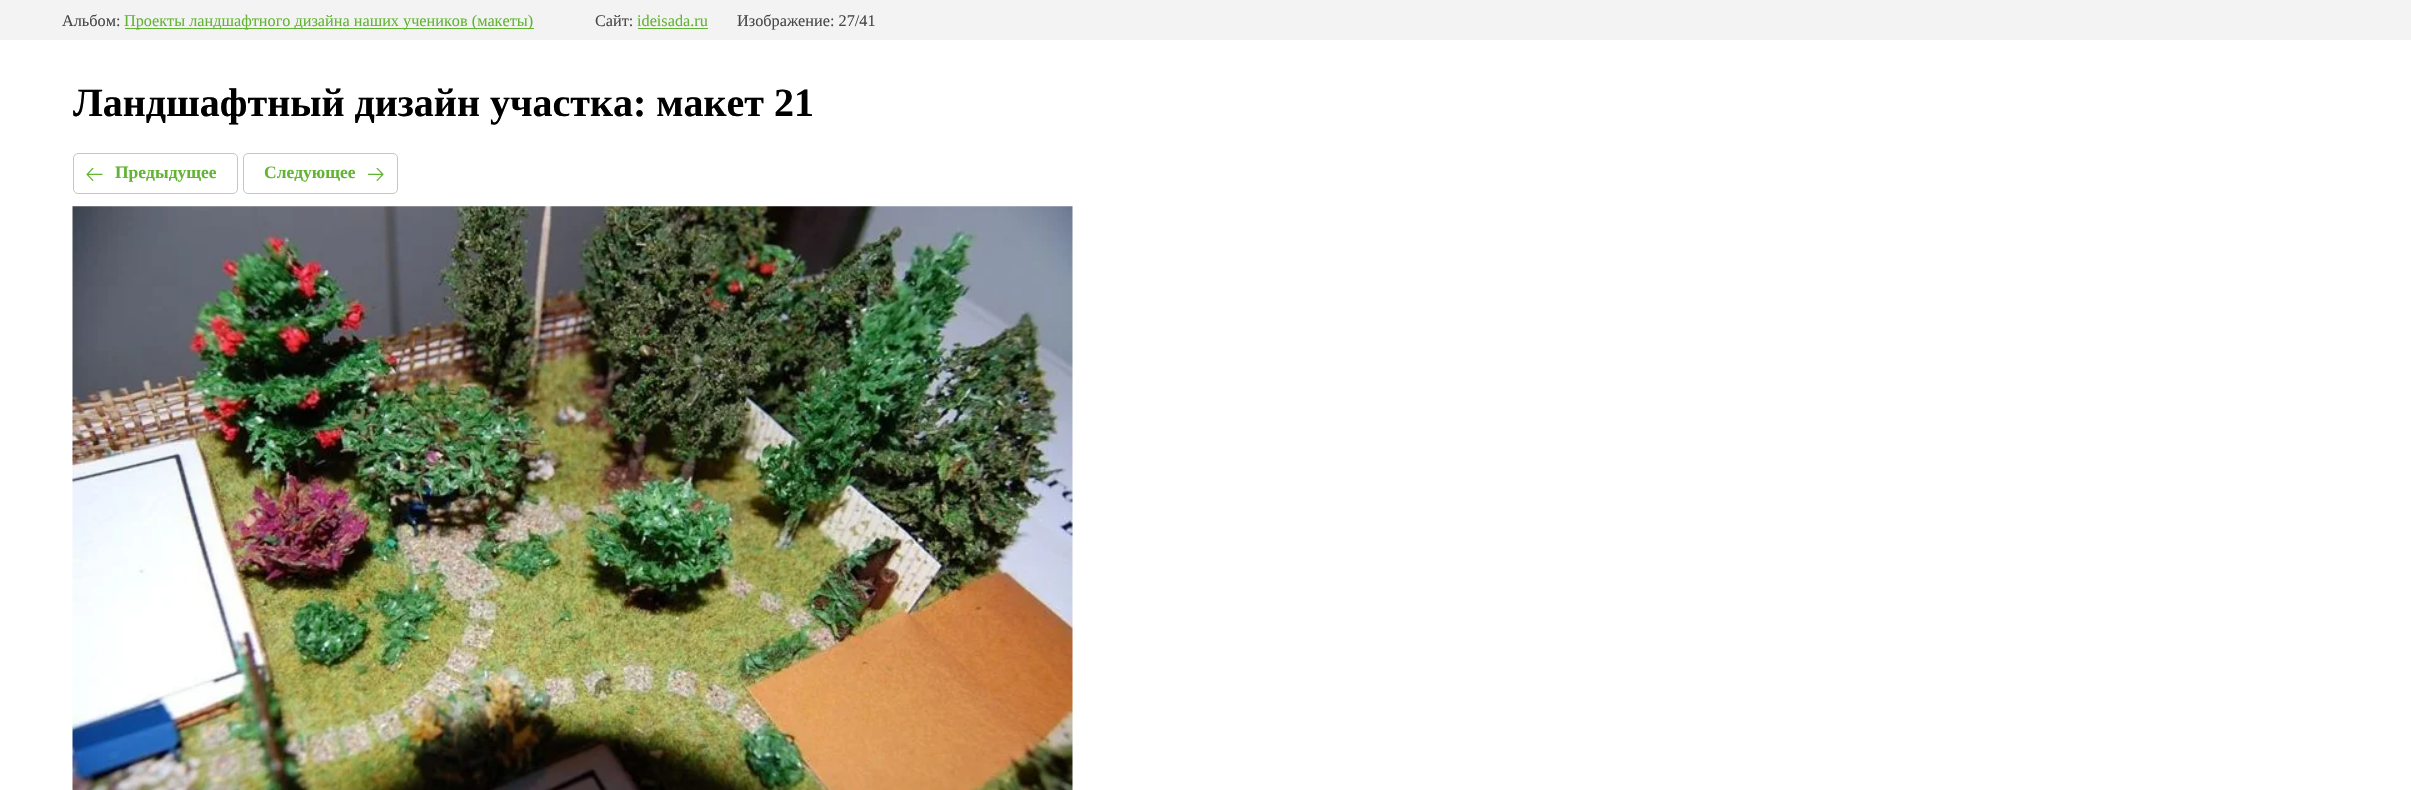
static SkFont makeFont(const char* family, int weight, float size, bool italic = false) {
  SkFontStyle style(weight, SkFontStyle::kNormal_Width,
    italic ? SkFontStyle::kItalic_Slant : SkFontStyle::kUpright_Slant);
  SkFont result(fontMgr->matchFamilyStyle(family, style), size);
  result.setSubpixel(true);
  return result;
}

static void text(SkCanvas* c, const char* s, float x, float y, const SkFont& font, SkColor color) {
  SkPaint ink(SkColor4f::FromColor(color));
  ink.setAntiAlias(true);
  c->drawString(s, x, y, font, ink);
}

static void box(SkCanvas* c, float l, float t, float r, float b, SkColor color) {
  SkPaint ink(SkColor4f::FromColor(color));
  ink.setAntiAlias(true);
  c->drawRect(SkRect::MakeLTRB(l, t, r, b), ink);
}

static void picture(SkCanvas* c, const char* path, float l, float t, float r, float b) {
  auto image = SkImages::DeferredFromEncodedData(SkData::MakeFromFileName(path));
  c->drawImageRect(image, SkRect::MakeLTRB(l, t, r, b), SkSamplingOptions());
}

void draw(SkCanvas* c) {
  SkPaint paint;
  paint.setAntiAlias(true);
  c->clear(0xffffffff);
  box(c, 0, 0, 2411, 40, 0xfff3f3f3);
  SkFont face1 = makeFont("Liberation Serif", 400, 16.25f);
  text(c, "Альбом:", 62, 26, face1, 0xff484848);
  box(c, 125, 28, 534, 29, 0xff63b435);
  text(c, "Проекты ландшафтного дизайна наших учеников (макеты)", 124, 26, face1, 0xff63b435);
  text(c, "Сайт:", 595, 26, face1, 0xff484848);
  text(c, "ideisada.ru", 637, 26, face1, 0xff63b435);
  box(c, 638, 28, 708, 29, 0xff63b435);
  text(c, "Изображение: 27/41", 737, 26, face1, 0xff484848);
  SkFont face2 = makeFont("Liberation Serif", 700, 40);
  text(c, "Ландшафтный дизайн участка: макет 21", 73, 116, face2, 0xff000000);
  paint.setStyle(SkPaint::kStroke_Style);
  paint.setStrokeWidth(1);
  paint.setColor(0xffb1da9a);
  c->drawRoundRect(SkRect::MakeLTRB(73.5f, 153.5f, 237.5f, 193.5f), 4.5f, 4.5f, paint);
  picture(c, "img_01.png", 86, 168, 103, 181);
  SkFont face3 = makeFont("Liberation Serif", 700, 17.5f);
  text(c, "Предыдущее", 115, 178, face3, 0xff63b435);
  c->drawRoundRect(SkRect::MakeLTRB(243.5f, 153.5f, 397.5f, 193.5f), 4.5f, 4.5f, paint);
  text(c, "Следующее", 264, 178, face3, 0xff63b435);
  picture(c, "img_02.png", 368, 168, 384, 181);
  picture(c, "img_03.png", 72, 206, 1073, 790);
}
